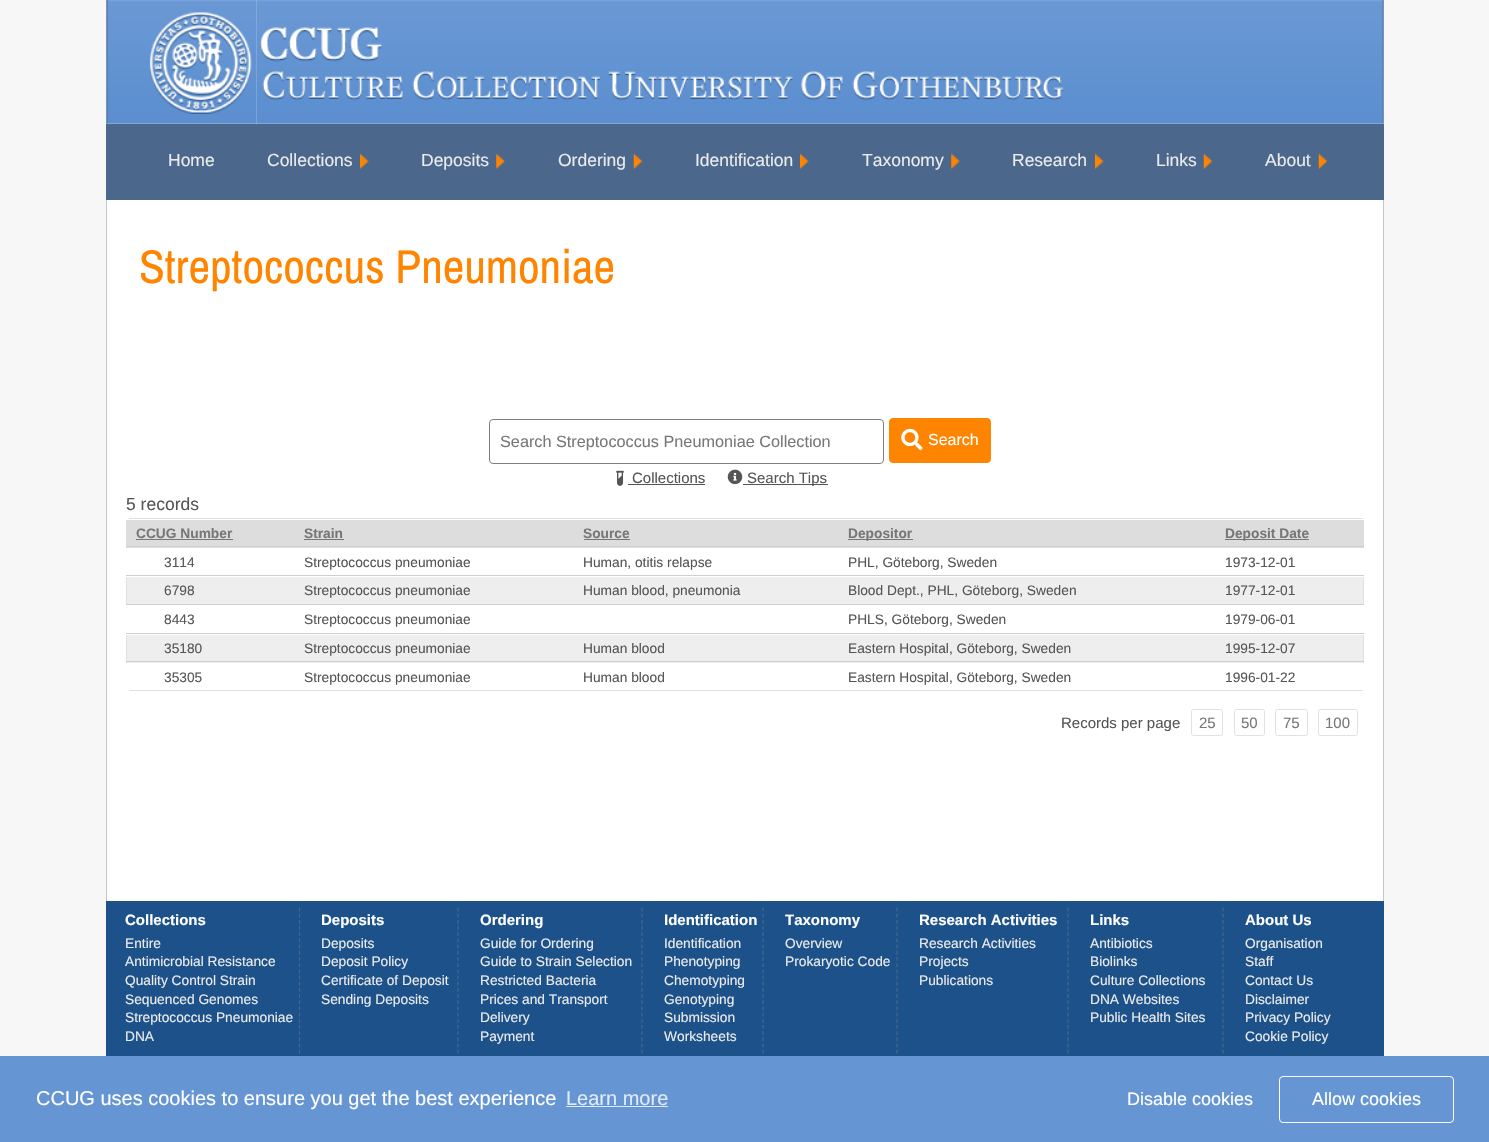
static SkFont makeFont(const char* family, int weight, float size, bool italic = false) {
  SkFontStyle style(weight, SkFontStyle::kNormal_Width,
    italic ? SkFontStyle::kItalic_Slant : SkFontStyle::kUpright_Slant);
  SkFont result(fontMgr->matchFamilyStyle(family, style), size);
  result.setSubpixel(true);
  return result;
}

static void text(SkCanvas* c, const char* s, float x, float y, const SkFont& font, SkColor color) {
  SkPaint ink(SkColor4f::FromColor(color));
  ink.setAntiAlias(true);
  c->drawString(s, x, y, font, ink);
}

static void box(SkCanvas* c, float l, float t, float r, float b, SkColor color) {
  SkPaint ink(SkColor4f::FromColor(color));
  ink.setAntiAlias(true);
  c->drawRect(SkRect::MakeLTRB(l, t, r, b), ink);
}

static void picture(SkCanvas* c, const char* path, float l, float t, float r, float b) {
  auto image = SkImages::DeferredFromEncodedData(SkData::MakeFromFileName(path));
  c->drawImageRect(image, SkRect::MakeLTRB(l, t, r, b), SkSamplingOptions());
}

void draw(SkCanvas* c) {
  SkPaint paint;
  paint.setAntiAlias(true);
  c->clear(0xfff7f7f7);
  picture(c, "img_01.png", 106, 0, 257, 124);
  picture(c, "img_02.png", 256, 0, 1384, 124);
  box(c, 106, 124, 1384, 200, 0xff4b678c);
  SkFont face1 = makeFont("Liberation Sans", 400, 17.5f);
  text(c, "Home", 168, 166, face1, 0xffebebeb);
  picture(c, "img_03.png", 360, 153, 369, 169);
  text(c, "Collections", 267, 166, face1, 0xffebebeb);
  picture(c, "img_04.png", 496, 153, 505, 169);
  text(c, "Deposits", 421, 166, face1, 0xffebebeb);
  picture(c, "img_05.png", 633, 153, 643, 169);
  text(c, "Ordering", 558, 166, face1, 0xffebebeb);
  picture(c, "img_03.png", 800, 153, 809, 169);
  text(c, "Identification", 695, 166, face1, 0xffebebeb);
  picture(c, "img_04.png", 951, 153, 960, 169);
  text(c, "Taxonomy", 862, 166, face1, 0xffebebeb);
  picture(c, "img_03.png", 1095, 153, 1104, 169);
  text(c, "Research", 1012, 166, face1, 0xffebebeb);
  picture(c, "img_05.png", 1203, 153, 1213, 169);
  text(c, "Links", 1156, 166, face1, 0xffebebeb);
  picture(c, "img_05.png", 1318, 153, 1328, 169);
  text(c, "About", 1265, 166, face1, 0xffebebeb);
  box(c, 107, 200, 1383, 901, 0xffffffff);
  box(c, 1383, 200, 1384, 901, 0xffc6c6c6);
  box(c, 106, 200, 107, 901, 0xffc6c6c6);
  SkFont face2 = makeFont("Archivo Narrow", 400, 47.25f);
  text(c, "Streptococcus Pneumoniae", 139, 283, face2, 0xffff8500);
  paint.setStyle(SkPaint::kStroke_Style);
  paint.setStrokeWidth(1);
  paint.setColor(0xff817f7f);
  c->drawRoundRect(SkRect::MakeLTRB(489.5f, 419.5f, 883.5f, 463.5f), 3.5f, 3.5f, paint);
  SkFont face3 = makeFont("Liberation Sans", 400, 16.25f);
  text(c, "Search Streptococcus Pneumoniae Collection", 500, 447, face3, 0xff777777);
  paint.setStyle(SkPaint::kFill_Style);
  paint.setColor(0xffff8500);
  c->drawRoundRect(SkRect::MakeLTRB(889.5f, 418.5f, 990.5f, 462.5f), 3.5f, 3.5f, paint);
  paint.setStyle(SkPaint::kStroke_Style);
  c->drawRoundRect(SkRect::MakeLTRB(889.5f, 418.5f, 990.5f, 462.5f), 3.5f, 3.5f, paint);
  picture(c, "img_06.png", 901, 428, 923, 451);
  SkFont face4 = makeFont("Liberation Sans", 400, 16);
  text(c, "Search", 928, 445, face4, 0xffffffff);
  picture(c, "img_07.png", 616, 470, 624, 486);
  SkFont face5 = makeFont("Liberation Sans", 400, 15);
  text(c, "Collections", 632, 483, face5, 0xff555555);
  box(c, 628, 484, 705, 485, 0xff555555);
  picture(c, "img_08.png", 727, 469, 743, 485);
  box(c, 743, 484, 828, 485, 0xff555555);
  text(c, "Search Tips", 747, 483, face5, 0xff555555);
  text(c, "5 records", 126, 510, face1, 0xff555555);
  box(c, 129, 518, 1363, 519, 0xffe1e1e1);
  box(c, 129, 690, 1363, 691, 0xffe1e1e1);
  box(c, 126, 520, 1364, 548, 0xffdddddd);
  box(c, 126, 546, 1364, 547, 0xffd0cece);
  SkFont face6 = makeFont("Liberation Sans", 700, 13.75f);
  text(c, "CCUG Number", 136, 538, face6, 0xff777777);
  box(c, 136, 539, 233, 540, 0xff777777);
  text(c, "Strain", 304, 538, face6, 0xff777777);
  box(c, 304, 539, 344, 540, 0xff777777);
  text(c, "Source", 583, 538, face6, 0xff777777);
  box(c, 584, 539, 630, 540, 0xff777777);
  box(c, 848, 539, 913, 540, 0xff777777);
  text(c, "Depositor", 848, 538, face6, 0xff777777);
  box(c, 1225, 539, 1309, 540, 0xff777777);
  text(c, "Deposit Date", 1225, 538, face6, 0xff777777);
  box(c, 126, 575, 1364, 576, 0xffd0cece);
  SkFont face7 = makeFont("Liberation Sans", 400, 13.75f);
  text(c, "3114", 164, 567, face7, 0xff555555);
  text(c, "Streptococcus pneumoniae", 304, 567, face7, 0xff555555);
  text(c, "Human, otitis relapse", 583, 567, face7, 0xff555555);
  text(c, "PHL, Göteborg, Sweden", 848, 567, face7, 0xff555555);
  text(c, "1973-12-01", 1225, 567, face7, 0xff555555);
  box(c, 127, 577, 1363, 604, 0xffeeeeee);
  box(c, 1363, 576, 1364, 605, 0xffe1e1e1);
  box(c, 126, 576, 127, 605, 0xffe1e1e1);
  box(c, 126, 576, 127, 577, 0xffffffff);
  box(c, 126, 604, 1364, 605, 0xffd0cece);
  text(c, "6798", 164, 595, face7, 0xff555555);
  text(c, "Streptococcus pneumoniae", 304, 595, face7, 0xff555555);
  text(c, "Human blood, pneumonia", 583, 595, face7, 0xff555555);
  text(c, "Blood Dept., PHL, Göteborg, Sweden", 848, 595, face7, 0xff555555);
  box(c, 1363, 576, 1364, 577, 0xffffffff);
  text(c, "1977-12-01", 1225, 595, face7, 0xff555555);
  box(c, 126, 633, 1364, 634, 0xffd0cece);
  text(c, "8443", 164, 624, face7, 0xff555555);
  text(c, "Streptococcus pneumoniae", 304, 624, face7, 0xff555555);
  text(c, "PHLS, Göteborg, Sweden", 848, 624, face7, 0xff555555);
  text(c, "1979-06-01", 1225, 624, face7, 0xff555555);
  box(c, 127, 635, 1363, 663, 0xffeeeeee);
  box(c, 1363, 634, 1364, 663, 0xffe1e1e1);
  box(c, 126, 634, 127, 663, 0xffe1e1e1);
  box(c, 126, 634, 127, 635, 0xffffffff);
  box(c, 126, 661, 1364, 662, 0xffd0cece);
  text(c, "35180", 164, 653, face7, 0xff555555);
  text(c, "Streptococcus pneumoniae", 304, 653, face7, 0xff555555);
  text(c, "Human blood", 583, 653, face7, 0xff555555);
  text(c, "Eastern Hospital, Göteborg, Sweden", 848, 653, face7, 0xff555555);
  box(c, 1363, 634, 1364, 635, 0xffffffff);
  text(c, "1995-12-07", 1225, 653, face7, 0xff555555);
  text(c, "35305", 164, 682, face7, 0xff555555);
  text(c, "Streptococcus pneumoniae", 304, 682, face7, 0xff555555);
  text(c, "Human blood", 583, 682, face7, 0xff555555);
  text(c, "Eastern Hospital, Göteborg, Sweden", 848, 682, face7, 0xff555555);
  text(c, "1996-01-22", 1225, 682, face7, 0xff555555);
  text(c, "Records per page", 1061, 728, face5, 0xff555555);
  paint.setColor(0xffe1e1e1);
  c->drawRoundRect(SkRect::MakeLTRB(1191.5f, 709.5f, 1222.5f, 735.5f), 2, 2, paint);
  text(c, "25", 1199, 728, face5, 0xff777777);
  c->drawRoundRect(SkRect::MakeLTRB(1234.5f, 709.5f, 1264.5f, 735.5f), 2, 2, paint);
  text(c, "50", 1241, 728, face5, 0xff777777);
  c->drawRoundRect(SkRect::MakeLTRB(1275.5f, 709.5f, 1307.5f, 735.5f), 2, 2, paint);
  text(c, "75", 1283, 728, face5, 0xff777777);
  c->drawRoundRect(SkRect::MakeLTRB(1318.5f, 709.5f, 1357.5f, 735.5f), 2, 2, paint);
  text(c, "100", 1325, 728, face5, 0xff777777);
  box(c, 106, 901, 1384, 1056, 0xff1c518a);
  paint.setStrokeWidth(1.2f);
  paint.setColor(0xff47668b);
  paint.setPathEffect(SkDashPathEffect::Make({{3.75f, 2.44f}}, 0));
  c->drawPath(SkPathBuilder().moveTo(299.5f, 907.5f).lineTo(299.5f, 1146).detach(), paint);
  paint.setPathEffect(nullptr);
  SkFont face8 = makeFont("Liberation Sans", 700, 15);
  text(c, "Collections", 125, 925, face8, 0xffffffff);
  text(c, "Entire", 125, 948, face7, 0xffebebeb);
  text(c, "Antimicrobial Resistance", 125, 966, face7, 0xffebebeb);
  text(c, "Quality Control Strain", 125, 985, face7, 0xffebebeb);
  text(c, "Sequenced Genomes", 125, 1004, face7, 0xffebebeb);
  text(c, "Streptococcus Pneumoniae", 125, 1022, face7, 0xffebebeb);
  text(c, "DNA", 125, 1041, face7, 0xffebebeb);
  paint.setPathEffect(SkDashPathEffect::Make({{3.75f, 2.44f}}, 0));
  c->drawPath(SkPathBuilder().moveTo(458, 907.5f).lineTo(458, 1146).detach(), paint);
  paint.setPathEffect(nullptr);
  text(c, "Deposits", 321, 925, face8, 0xffffffff);
  text(c, "Deposits", 321, 948, face7, 0xffebebeb);
  text(c, "Deposit Policy", 321, 966, face7, 0xffebebeb);
  text(c, "Certificate of Deposit", 321, 985, face7, 0xffebebeb);
  text(c, "Sending Deposits", 321, 1004, face7, 0xffebebeb);
  paint.setPathEffect(SkDashPathEffect::Make({{3.75f, 2.44f}}, 0));
  c->drawPath(SkPathBuilder().moveTo(642, 907.5f).lineTo(642, 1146).detach(), paint);
  paint.setPathEffect(nullptr);
  text(c, "Ordering", 480, 925, face8, 0xffffffff);
  text(c, "Guide for Ordering", 480, 948, face7, 0xffebebeb);
  text(c, "Guide to Strain Selection", 480, 966, face7, 0xffebebeb);
  text(c, "Restricted Bacteria", 480, 985, face7, 0xffebebeb);
  text(c, "Prices and Transport", 480, 1004, face7, 0xffebebeb);
  text(c, "Delivery", 480, 1022, face7, 0xffebebeb);
  text(c, "Payment", 480, 1041, face7, 0xffebebeb);
  paint.setPathEffect(SkDashPathEffect::Make({{3.75f, 2.44f}}, 0));
  c->drawPath(SkPathBuilder().moveTo(763, 907.5f).lineTo(763, 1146).detach(), paint);
  paint.setPathEffect(nullptr);
  text(c, "Identification", 664, 925, face8, 0xffffffff);
  text(c, "Identification", 664, 948, face7, 0xffebebeb);
  text(c, "Phenotyping", 664, 966, face7, 0xffebebeb);
  text(c, "Chemotyping", 664, 985, face7, 0xffebebeb);
  text(c, "Genotyping", 664, 1004, face7, 0xffebebeb);
  text(c, "Submission", 664, 1022, face7, 0xffebebeb);
  text(c, "Worksheets", 664, 1041, face7, 0xffebebeb);
  paint.setPathEffect(SkDashPathEffect::Make({{3.75f, 2.44f}}, 0));
  c->drawPath(SkPathBuilder().moveTo(897, 907.5f).lineTo(897, 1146).detach(), paint);
  paint.setPathEffect(nullptr);
  text(c, "Taxonomy", 785, 925, face8, 0xffffffff);
  text(c, "Overview", 785, 948, face7, 0xffebebeb);
  text(c, "Prokaryotic Code", 785, 966, face7, 0xffebebeb);
  paint.setPathEffect(SkDashPathEffect::Make({{3.75f, 2.44f}}, 0));
  c->drawPath(SkPathBuilder().moveTo(1068, 907.5f).lineTo(1068, 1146).detach(), paint);
  paint.setPathEffect(nullptr);
  text(c, "Research Activities", 919, 925, face8, 0xffffffff);
  text(c, "Research Activities", 919, 948, face7, 0xffebebeb);
  text(c, "Projects", 919, 966, face7, 0xffebebeb);
  text(c, "Publications", 919, 985, face7, 0xffebebeb);
  paint.setPathEffect(SkDashPathEffect::Make({{3.75f, 2.44f}}, 0));
  c->drawPath(SkPathBuilder().moveTo(1223, 907.5f).lineTo(1223, 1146).detach(), paint);
  paint.setPathEffect(nullptr);
  text(c, "Links", 1090, 925, face8, 0xffffffff);
  text(c, "Antibiotics", 1090, 948, face7, 0xffebebeb);
  text(c, "Biolinks", 1090, 966, face7, 0xffebebeb);
  text(c, "Culture Collections", 1090, 985, face7, 0xffebebeb);
  text(c, "DNA Websites", 1090, 1004, face7, 0xffebebeb);
  text(c, "Public Health Sites", 1090, 1022, face7, 0xffebebeb);
  text(c, "About Us", 1245, 925, face8, 0xffffffff);
  text(c, "Organisation", 1245, 948, face7, 0xffebebeb);
  text(c, "Staff", 1245, 966, face7, 0xffebebeb);
  text(c, "Contact Us", 1245, 985, face7, 0xffebebeb);
  text(c, "Disclaimer", 1245, 1004, face7, 0xffebebeb);
  text(c, "Privacy Policy", 1245, 1022, face7, 0xffebebeb);
  text(c, "Cookie Policy", 1245, 1041, face7, 0xffebebeb);
  box(c, 0, 1056, 1489, 1142, 0xff6595d3);
  SkFont face9 = makeFont("Liberation Sans", 400, 20);
  text(c, "CCUG uses cookies to ensure you get the best experience", 36, 1105, face9, 0xffffffff);
  text(c, "Learn more", 566, 1105, face9, 0xffe0eaf6);
  box(c, 566, 1106, 668, 1107, 0xffe0eaf6);
  SkFont face10 = makeFont("Liberation Sans", 400, 18);
  text(c, "Disable cookies", 1127, 1105, face10, 0xffffffff);
  paint.setStrokeWidth(1);
  paint.setColor(0xffffffff);
  c->drawRoundRect(SkRect::MakeLTRB(1279.5f, 1076.5f, 1453.5f, 1122.5f), 3.5f, 3.5f, paint);
  text(c, "Allow cookies", 1312, 1105, face10, 0xffffffff);
}
